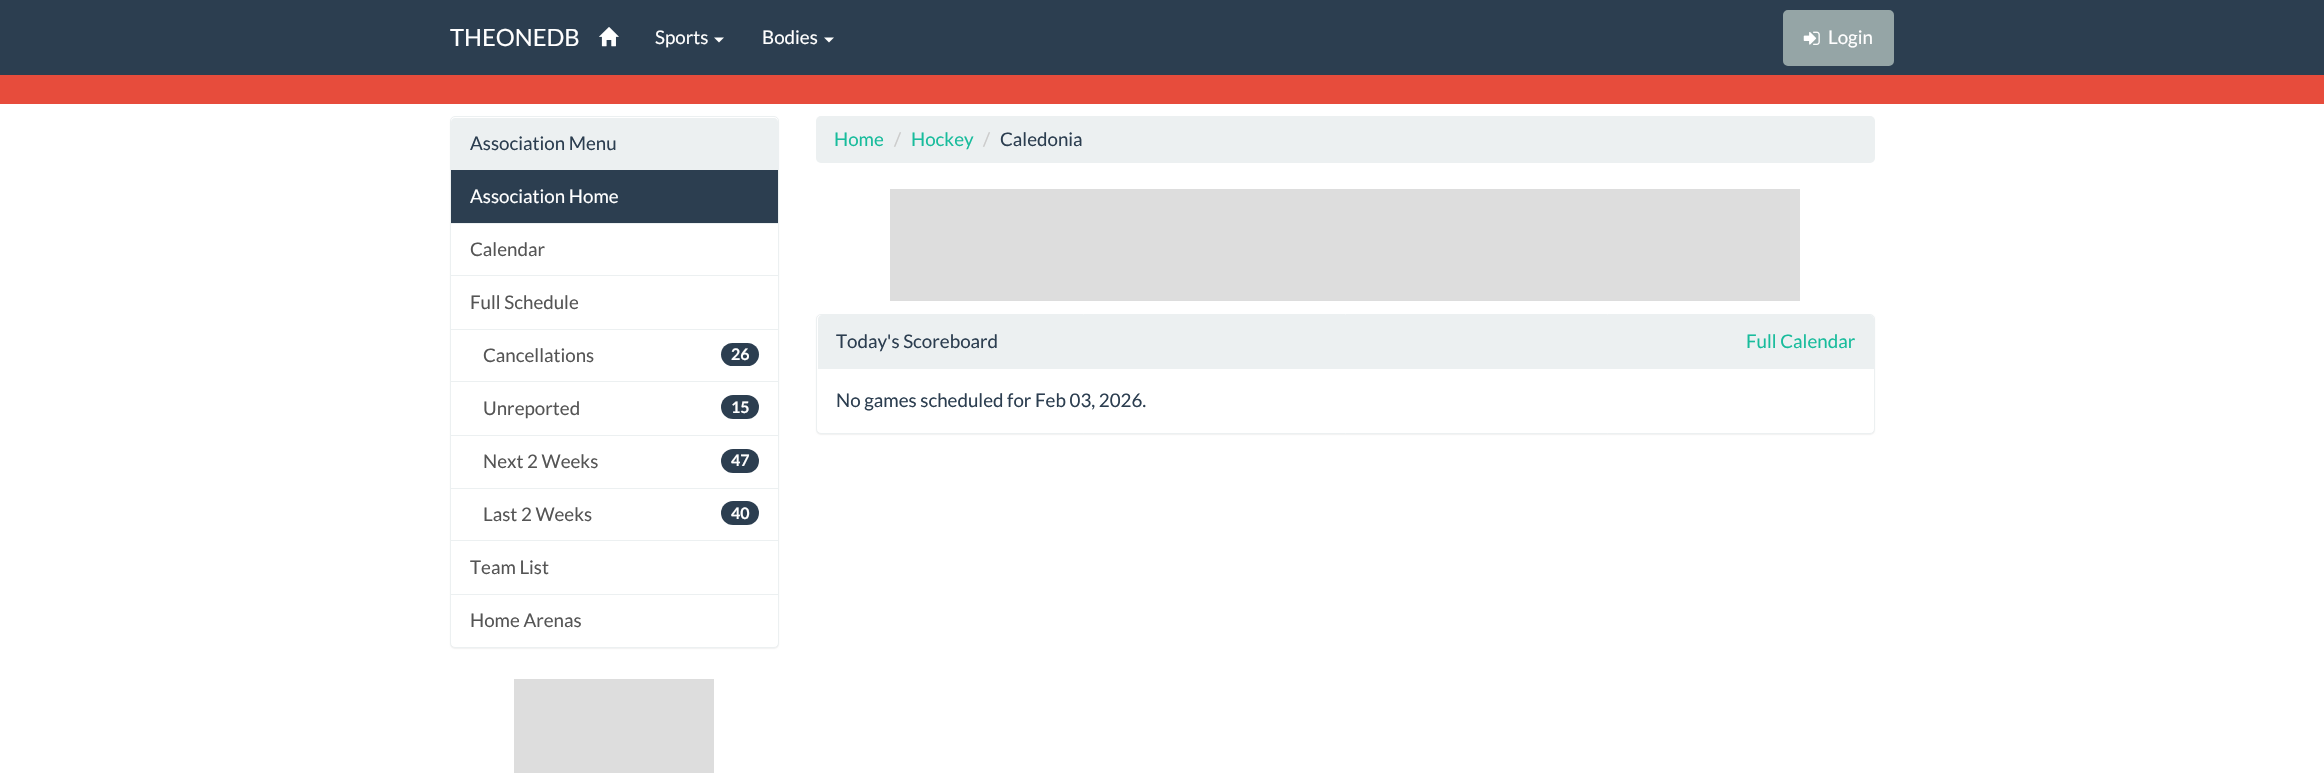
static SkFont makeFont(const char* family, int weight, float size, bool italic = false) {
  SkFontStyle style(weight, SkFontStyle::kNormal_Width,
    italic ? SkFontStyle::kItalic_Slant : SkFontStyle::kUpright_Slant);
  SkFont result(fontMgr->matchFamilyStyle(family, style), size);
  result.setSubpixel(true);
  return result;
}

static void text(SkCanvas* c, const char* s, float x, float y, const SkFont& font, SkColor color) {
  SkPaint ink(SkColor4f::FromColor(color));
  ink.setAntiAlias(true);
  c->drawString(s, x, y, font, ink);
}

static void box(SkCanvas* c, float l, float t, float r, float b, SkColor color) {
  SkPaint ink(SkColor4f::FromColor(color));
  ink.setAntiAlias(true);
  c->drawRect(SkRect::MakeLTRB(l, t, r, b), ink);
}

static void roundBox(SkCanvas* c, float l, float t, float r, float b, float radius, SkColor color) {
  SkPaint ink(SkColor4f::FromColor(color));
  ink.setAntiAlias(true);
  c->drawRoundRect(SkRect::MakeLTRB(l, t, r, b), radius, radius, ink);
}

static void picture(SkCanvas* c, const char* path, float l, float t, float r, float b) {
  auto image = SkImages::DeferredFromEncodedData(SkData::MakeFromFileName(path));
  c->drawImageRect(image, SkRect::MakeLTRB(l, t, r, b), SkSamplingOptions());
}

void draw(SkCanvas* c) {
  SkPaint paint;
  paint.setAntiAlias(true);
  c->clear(0xffffffff);
  box(c, 0, 0, 2324, 75, 0xff2c3e50);
  SkFont face1 = makeFont("Lato", 400, 23.75f);
  text(c, "THEONEDB", 450, 46, face1, 0xffffffff);
  picture(c, "img_01.png", 599, 27, 619, 47);
  SkFont face2 = makeFont("Lato", 400, 18.75f);
  text(c, "Sports", 655, 44, face2, 0xffffffff);
  paint.setColor(0xffffffff);
  c->drawPath(SkPathBuilder().moveTo(714, 37.5f).lineTo(724, 37.5f).lineTo(719, 42.5f).close().detach(), paint);
  text(c, "Bodies", 762, 44, face2, 0xffffffff);
  c->drawPath(SkPathBuilder().moveTo(824, 37.5f).lineTo(834, 37.5f).lineTo(829, 42.5f).close().detach(), paint);
  paint.setColor(0xff95a5a6);
  c->drawRoundRect(SkRect::MakeLTRB(1784.5f, 11.5f, 1892.5f, 64.5f), 3.5f, 3.5f, paint);
  paint.setStyle(SkPaint::kStroke_Style);
  paint.setStrokeWidth(3);
  c->drawRoundRect(SkRect::MakeLTRB(1784.5f, 11.5f, 1892.5f, 64.5f), 3.5f, 3.5f, paint);
  picture(c, "img_02.png", 1803, 31, 1820, 45);
  text(c, "Login", 1828, 44, face2, 0xffffffff);
  box(c, 0, 75, 2324, 104, 0xffe74c3c);
  paint.setStyle(SkPaint::kFill_Style);
  paint.setColor(0x0d000000);
  paint.setMaskFilter(SkMaskFilter::MakeBlur(kNormal_SkBlurStyle, 0.5f));
  c->drawRoundRect(SkRect::MakeLTRB(450, 118, 779, 649), 5, 5, paint);
  paint.setMaskFilter(nullptr);
  paint.setColor(0xffffffff);
  c->drawRoundRect(SkRect::MakeLTRB(450.5f, 116.5f, 778.5f, 647.5f), 4.5f, 4.5f, paint);
  paint.setStyle(SkPaint::kStroke_Style);
  paint.setStrokeWidth(1);
  paint.setColor(0xffecf0f1);
  c->drawRoundRect(SkRect::MakeLTRB(450.5f, 116.5f, 778.5f, 647.5f), 4.5f, 4.5f, paint);
  paint.setStyle(SkPaint::kFill_Style);
  c->drawPath(SkPathBuilder().moveTo(455, 118).lineTo(774, 118).cubicTo(776, 118, 778, 120, 778, 122).lineTo(778, 170).lineTo(451, 170).lineTo(451, 122).cubicTo(451, 120, 453, 118, 455, 118).close().detach(), paint);
  text(c, "Association Menu", 470, 150, face2, 0xff2c3e50);
  box(c, 451, 170, 778, 223, 0xff2c3e50);
  text(c, "Association Home", 470, 203, face2, 0xffffffff);
  box(c, 451, 223, 778, 224, 0xffecf0f1);
  box(c, 451, 275, 778, 276, 0xffecf0f1);
  text(c, "Calendar", 470, 256, face2, 0xff555555);
  box(c, 451, 329, 778, 330, 0xffecf0f1);
  text(c, "Full Schedule", 470, 309, face2, 0xff555555);
  box(c, 451, 381, 778, 382, 0xffecf0f1);
  text(c, "Cancellations", 483, 362, face2, 0xff555555);
  roundBox(c, 721, 343, 759, 366, 11.5f, 0xff2c3e50);
  SkFont face3 = makeFont("Lato", 700, 16);
  text(c, "26", 731, 360, face3, 0xffffffff);
  box(c, 451, 435, 778, 436, 0xffecf0f1);
  text(c, "Unreported", 483, 415, face2, 0xff555555);
  roundBox(c, 721, 395, 759, 419, 12, 0xff2c3e50);
  text(c, "15", 731, 413, face3, 0xffffffff);
  box(c, 451, 488, 778, 489, 0xffecf0f1);
  text(c, "Next 2 Weeks", 483, 468, face2, 0xff555555);
  roundBox(c, 721, 449, 759, 473, 12, 0xff2c3e50);
  text(c, "47", 731, 466, face3, 0xffffffff);
  box(c, 451, 540, 778, 541, 0xffecf0f1);
  text(c, "Last 2 Weeks", 483, 521, face2, 0xff555555);
  roundBox(c, 721, 501, 759, 525, 12, 0xff2c3e50);
  text(c, "40", 731, 519, face3, 0xffffffff);
  text(c, "Team List", 470, 574, face2, 0xff555555);
  box(c, 451, 594, 778, 595, 0xffecf0f1);
  text(c, "Home Arenas", 470, 627, face2, 0xff555555);
  box(c, 514, 679, 714, 773, 0xffdddddd);
  roundBox(c, 816, 116, 1875, 163, 5, 0xffecf0f1);
  text(c, "Home", 834, 146, face2, 0xff18bc9c);
  text(c, "/", 894, 146, face2, 0xffcccccc);
  text(c, "Hockey", 911, 146, face2, 0xff18bc9c);
  text(c, "/", 983, 146, face2, 0xffcccccc);
  text(c, "Caledonia", 1000, 146, face2, 0xff2c3e50);
  box(c, 890, 189, 1800, 301, 0xffdddddd);
  paint.setColor(0x0d000000);
  paint.setMaskFilter(SkMaskFilter::MakeBlur(kNormal_SkBlurStyle, 0.5f));
  c->drawRoundRect(SkRect::MakeLTRB(816, 315, 1875, 435), 5, 5, paint);
  paint.setMaskFilter(nullptr);
  paint.setColor(0xffffffff);
  c->drawRoundRect(SkRect::MakeLTRB(816.5f, 314.5f, 1874.5f, 433.5f), 4.5f, 4.5f, paint);
  paint.setStyle(SkPaint::kStroke_Style);
  paint.setColor(0xffecf0f1);
  c->drawRoundRect(SkRect::MakeLTRB(816.5f, 314.5f, 1874.5f, 433.5f), 4.5f, 4.5f, paint);
  paint.setStyle(SkPaint::kFill_Style);
  c->drawPath(SkPathBuilder().moveTo(822, 315).lineTo(1870, 315).cubicTo(1872, 315, 1874, 317, 1874, 319).lineTo(1874, 369).lineTo(818, 369).lineTo(818, 319).cubicTo(818, 317, 820, 315, 822, 315).close().detach(), paint);
  text(c, "Today's Scoreboard", 836, 348, face2, 0xff2c3e50);
  text(c, "Full Calendar", 1746, 348, face2, 0xff18bc9c);
  text(c, "No games scheduled for Feb 03, 2026.", 836, 407, face2, 0xff2c3e50);
}
